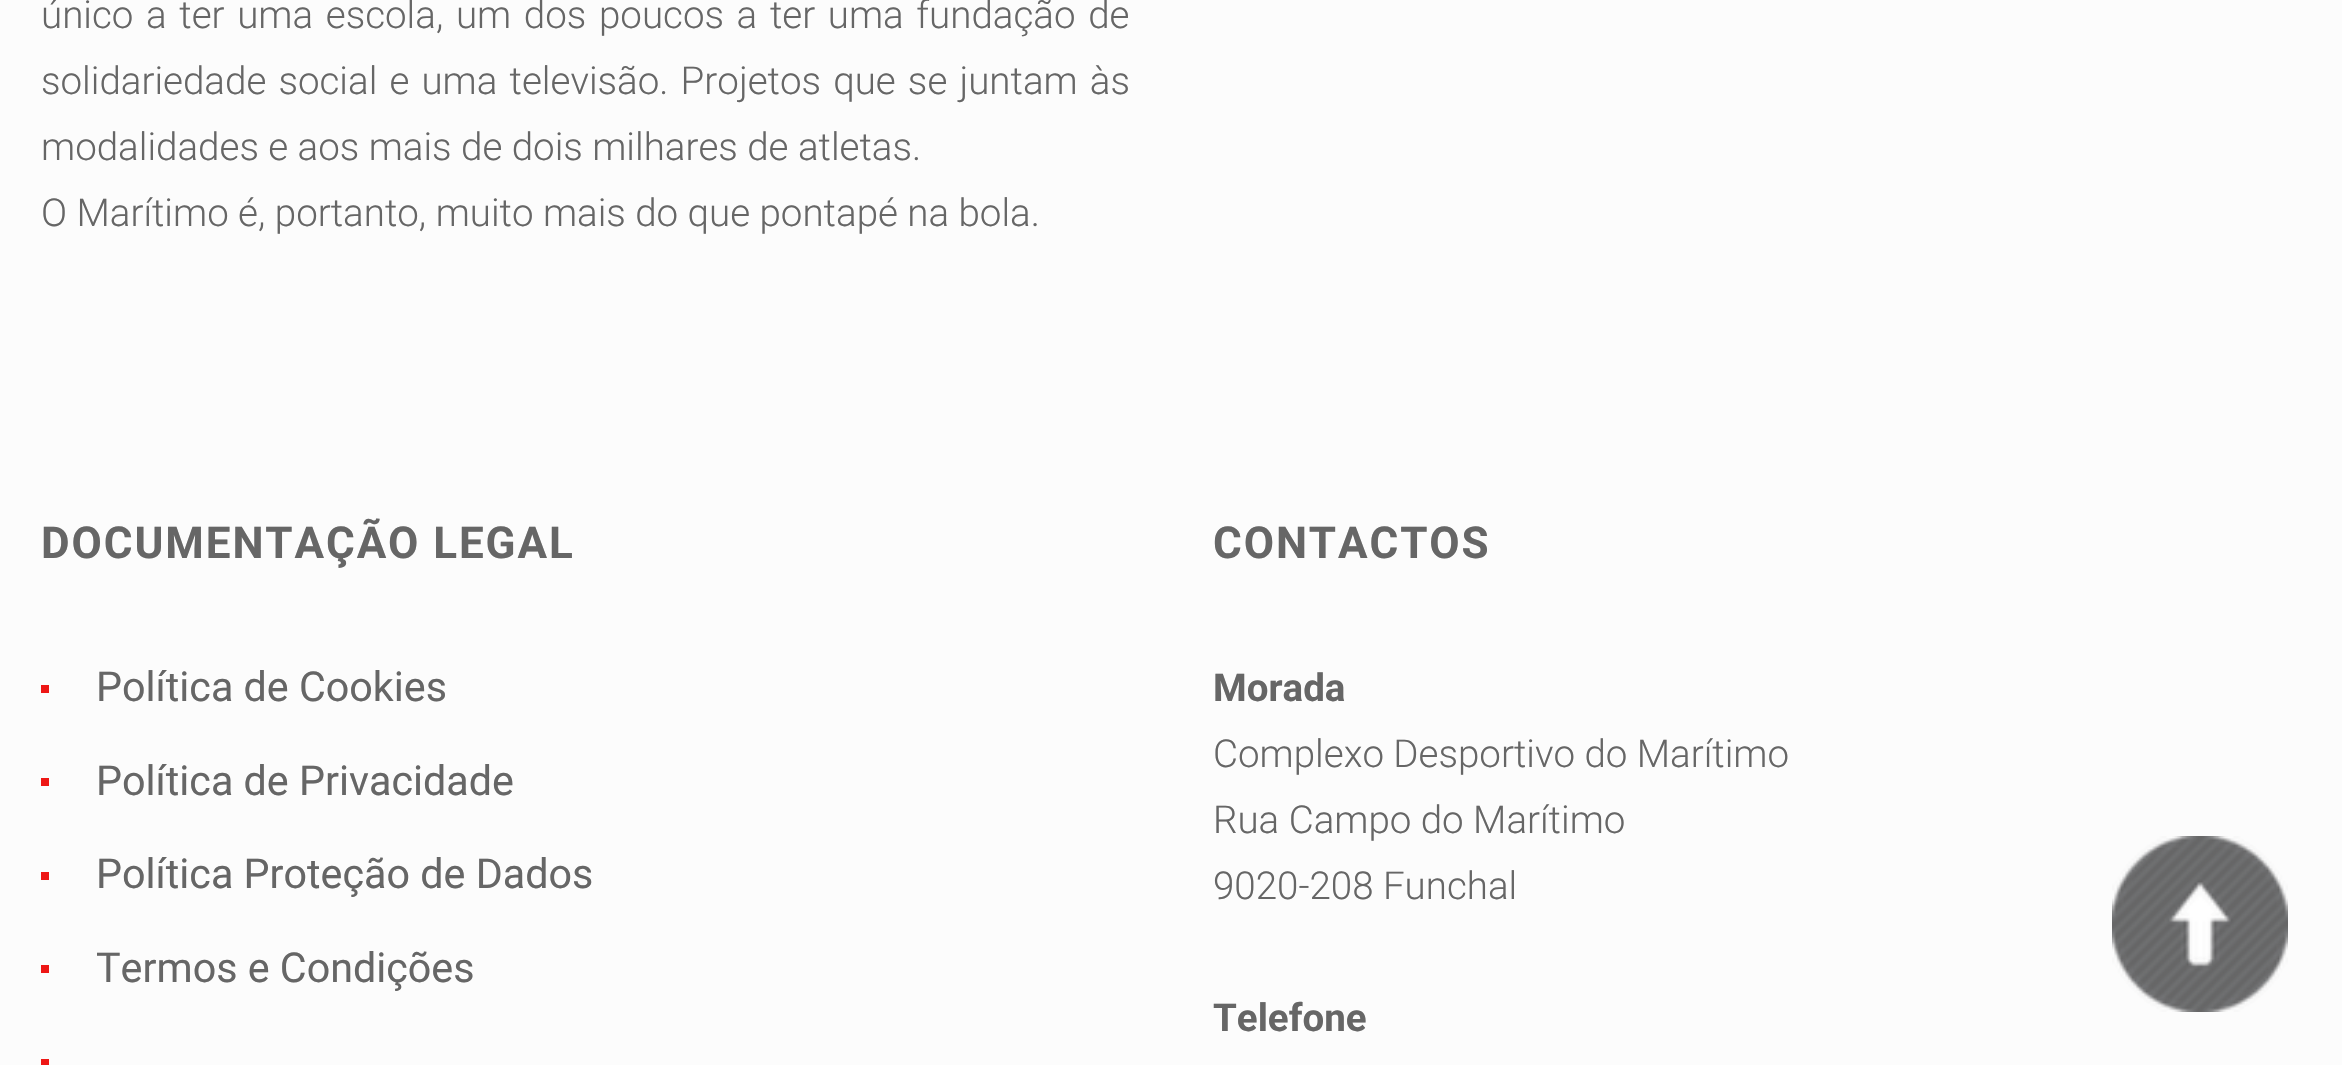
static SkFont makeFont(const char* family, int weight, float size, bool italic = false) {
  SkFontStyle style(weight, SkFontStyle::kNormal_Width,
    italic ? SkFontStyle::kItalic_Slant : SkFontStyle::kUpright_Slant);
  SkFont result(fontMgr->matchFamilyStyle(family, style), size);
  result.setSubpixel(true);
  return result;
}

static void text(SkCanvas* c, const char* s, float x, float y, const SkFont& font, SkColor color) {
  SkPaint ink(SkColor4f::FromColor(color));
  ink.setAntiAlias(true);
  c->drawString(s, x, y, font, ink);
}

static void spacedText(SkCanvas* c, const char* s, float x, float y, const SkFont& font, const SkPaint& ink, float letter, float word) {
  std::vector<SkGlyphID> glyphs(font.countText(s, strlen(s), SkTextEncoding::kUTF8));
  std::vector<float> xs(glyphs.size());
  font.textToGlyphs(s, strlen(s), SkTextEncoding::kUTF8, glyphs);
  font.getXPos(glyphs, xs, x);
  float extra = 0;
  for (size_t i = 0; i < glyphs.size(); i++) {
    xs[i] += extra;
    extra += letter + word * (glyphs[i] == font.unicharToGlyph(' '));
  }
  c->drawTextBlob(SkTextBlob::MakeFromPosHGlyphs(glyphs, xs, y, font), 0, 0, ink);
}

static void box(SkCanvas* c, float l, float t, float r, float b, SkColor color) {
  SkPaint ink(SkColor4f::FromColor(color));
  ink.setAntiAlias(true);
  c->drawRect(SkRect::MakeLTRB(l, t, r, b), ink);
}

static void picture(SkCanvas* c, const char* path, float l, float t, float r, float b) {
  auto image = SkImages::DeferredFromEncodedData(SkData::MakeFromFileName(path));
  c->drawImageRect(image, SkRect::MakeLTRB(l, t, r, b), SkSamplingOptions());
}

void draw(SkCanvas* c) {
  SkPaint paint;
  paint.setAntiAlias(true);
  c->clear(0xfffcfcfc);
  SkFont face1 = makeFont("Roboto", 300, 38.5f);
  paint.setColor(0xff666666);
  spacedText(c, "único a ter uma escola, um dos poucos a ter uma fundação de", 41, 28, face1, paint, 0, 3.25f);
  spacedText(c, "solidariedade social e uma televisão. Projetos que se juntam às", 41, 94, face1, paint, 0, 2.75f);
  text(c, "modalidades e aos mais de dois milhares de atletas.", 41, 160, face1, 0xff666666);
  text(c, "O Marítimo é, portanto, muito mais do que pontapé na bola.", 41, 226, face1, 0xff666666);
  SkFont face2 = makeFont("Roboto", 700, 44);
  spacedText(c, "DOCUMENTAÇÃO LEGAL", 41, 558, face2, paint, 1.9f, 0);
  box(c, 41, 685, 49, 693, 0xffee1715);
  SkFont face3 = makeFont("Roboto", 400, 41.25f);
  text(c, "Política de Cookies", 96, 701, face3, 0xff666666);
  box(c, 41, 778, 49, 786, 0xffee1715);
  text(c, "Política de Privacidade", 96, 795, face3, 0xff666666);
  box(c, 41, 872, 49, 880, 0xffee1715);
  text(c, "Política Proteção de Dados", 96, 888, face3, 0xff666666);
  box(c, 41, 965, 49, 973, 0xffee1715);
  text(c, "Termos e Condições", 96, 982, face3, 0xff666666);
  box(c, 41, 1059, 49, 1065, 0xffee1715);
  spacedText(c, "CONTACTOS", 1213, 558, face2, paint, 1.9f, 0);
  SkFont face4 = makeFont("Roboto", 700, 38.5f);
  text(c, "Morada", 1213, 701, face4, 0xff666666);
  text(c, "Complexo Desportivo do Marítimo", 1213, 767, face1, 0xff666666);
  text(c, "Rua Campo do Marítimo", 1213, 833, face1, 0xff666666);
  text(c, "9020-208 Funchal", 1213, 899, face1, 0xff666666);
  text(c, "Telefone", 1213, 1031, face4, 0xff666666);
  picture(c, "img_01.png", 2112, 836, 2288, 1012);
}
